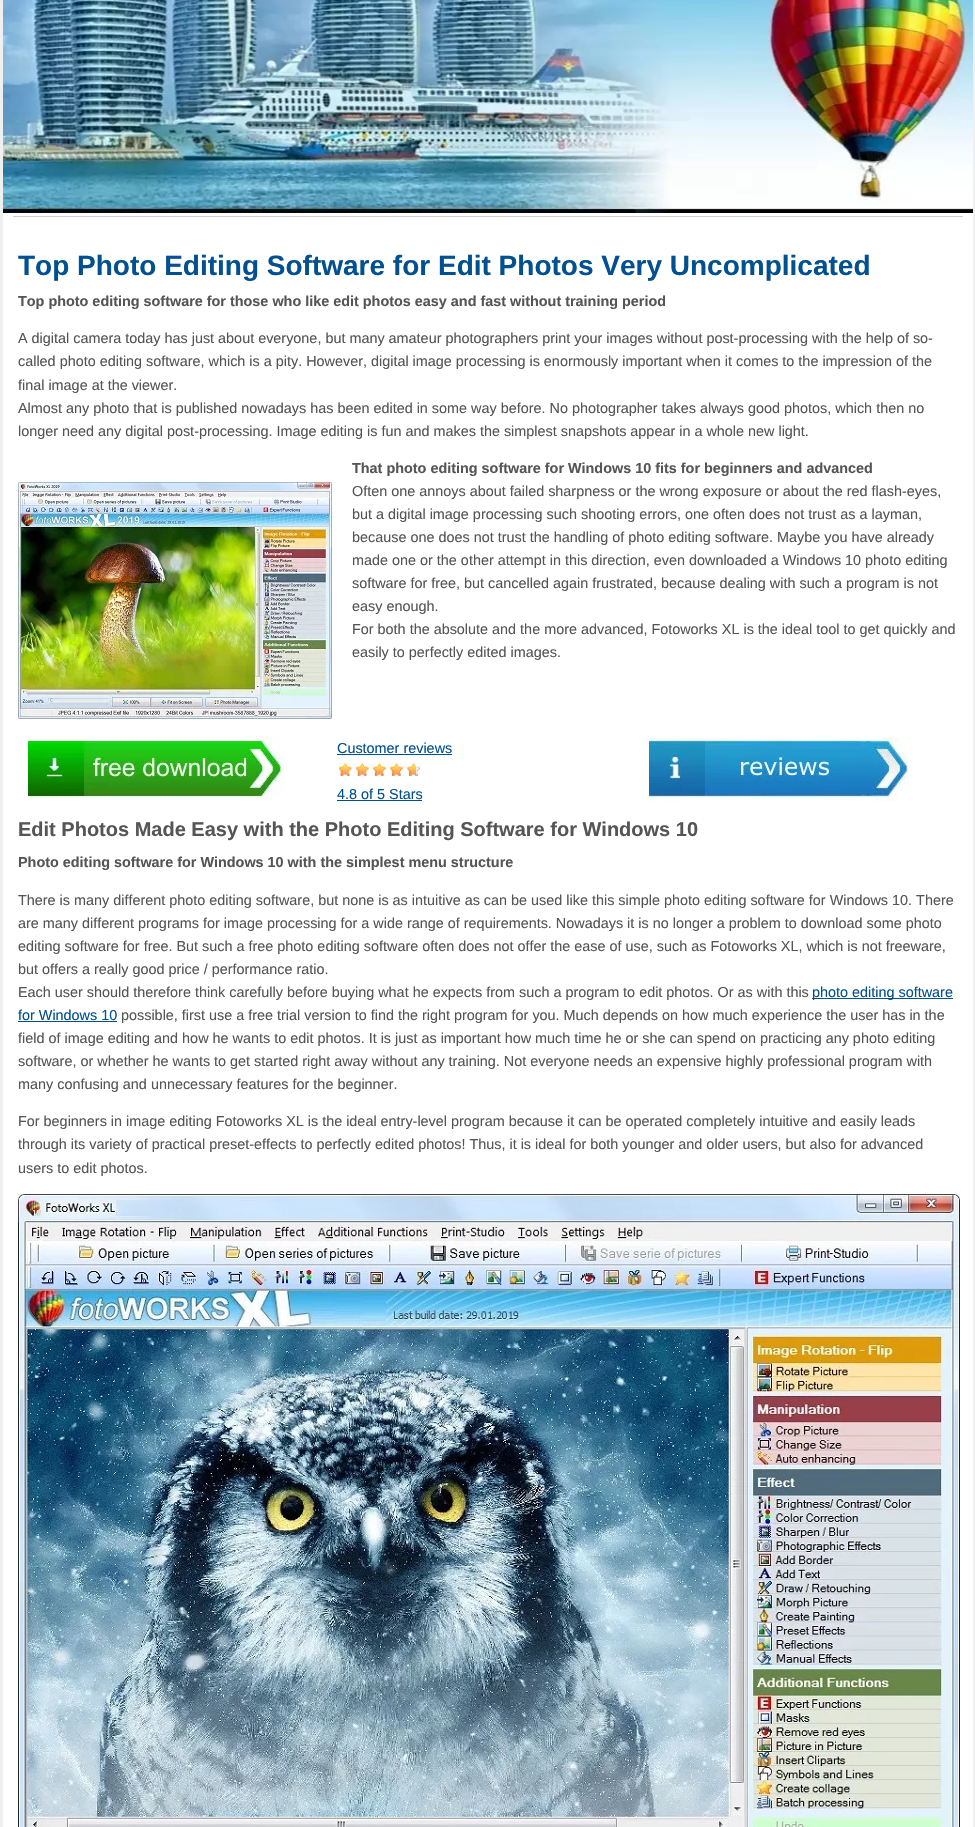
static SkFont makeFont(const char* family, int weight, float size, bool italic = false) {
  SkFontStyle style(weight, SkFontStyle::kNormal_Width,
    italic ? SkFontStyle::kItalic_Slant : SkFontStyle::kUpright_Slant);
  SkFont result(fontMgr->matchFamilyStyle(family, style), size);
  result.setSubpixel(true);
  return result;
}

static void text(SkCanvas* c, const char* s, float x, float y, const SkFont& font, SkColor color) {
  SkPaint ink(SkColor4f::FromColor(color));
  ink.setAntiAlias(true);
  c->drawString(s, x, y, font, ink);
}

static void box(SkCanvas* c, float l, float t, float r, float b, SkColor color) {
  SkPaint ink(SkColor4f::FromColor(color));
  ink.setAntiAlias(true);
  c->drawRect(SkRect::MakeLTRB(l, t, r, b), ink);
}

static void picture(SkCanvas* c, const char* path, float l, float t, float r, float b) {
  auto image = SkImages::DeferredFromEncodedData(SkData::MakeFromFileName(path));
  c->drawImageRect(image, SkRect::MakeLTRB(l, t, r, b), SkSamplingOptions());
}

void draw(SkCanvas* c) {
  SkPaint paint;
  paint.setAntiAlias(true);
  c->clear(0xfff0f0f0);
  box(c, 3, 213, 973, 1827, 0xffffffff);
  picture(c, "img_01.png", 3, 0, 973, 213);
  box(c, 13, 216, 963, 217, 0xffcccccc);
  SkFont face1 = makeFont("Liberation Sans", 700, 28);
  text(c, "Top Photo Editing Software for Edit Photos Very Uncomplicated", 18, 275, face1, 0xff015091);
  SkFont face2 = makeFont("Liberation Sans", 700, 14.4f);
  text(c, "Top photo editing software for those who like edit photos easy and fast without training period", 18, 306, face2, 0xff555555);
  SkFont face3 = makeFont("Liberation Sans", 400, 14.4f);
  text(c, "A digital camera today has just about everyone, but many amateur photographers print your images without post-processing with the help of so-", 18, 343, face3, 0xff555555);
  text(c, "called photo editing software, which is a pity. However, digital image processing is enormously important when it comes to the impression of the", 18, 366, face3, 0xff555555);
  text(c, "final image at the viewer.", 18, 390, face3, 0xff555555);
  text(c, "Almost any photo that is published nowadays has been edited in some way before. No photographer takes always good photos, which then no", 18, 413, face3, 0xff555555);
  text(c, "longer need any digital post-processing. Image editing is fun and makes the simplest snapshots appear in a whole new light.", 18, 436, face3, 0xff555555);
  picture(c, "img_02.png", 18, 482, 332, 719);
  text(c, "That photo editing software for Windows 10 fits for beginners and advanced", 352, 473, face2, 0xff555555);
  text(c, "Often one annoys about failed sharpness or the wrong exposure or about the red flash-eyes,", 352, 496, face3, 0xff555555);
  text(c, "but a digital image processing such shooting errors, one often does not trust as a layman,", 352, 519, face3, 0xff555555);
  text(c, "because one does not trust the handling of photo editing software. Maybe you have already", 352, 542, face3, 0xff555555);
  text(c, "made one or the other attempt in this direction, even downloaded a Windows 10 photo editing", 352, 565, face3, 0xff555555);
  text(c, "software for free, but cancelled again frustrated, because dealing with such a program is not", 352, 588, face3, 0xff555555);
  text(c, "easy enough.", 352, 611, face3, 0xff555555);
  text(c, "For both the absolute and the more advanced, Fotoworks XL is the ideal tool to get quickly and", 352, 634, face3, 0xff555555);
  text(c, "easily to perfectly edited images.", 352, 657, face3, 0xff555555);
  picture(c, "img_03.png", 28, 737, 285, 801);
  text(c, "Customer reviews", 337, 753, face3, 0xff015091);
  box(c, 337, 754, 452, 755, 0xff005090);
  picture(c, "img_04.png", 337, 763, 420, 776);
  text(c, "4.8 of 5 Stars", 337, 799, face3, 0xff015091);
  box(c, 337, 800, 422, 801, 0xff005090);
  picture(c, "img_05.png", 649, 737, 908, 801);
  SkFont face4 = makeFont("Liberation Sans", 700, 20);
  text(c, "Edit Photos Made Easy with the Photo Editing Software for Windows 10", 18, 836, face4, 0xff555555);
  text(c, "Photo editing software for Windows 10 with the simplest menu structure", 18, 867, face2, 0xff555555);
  text(c, "There is many different photo editing software, but none is as intuitive as can be used like this simple photo editing software for Windows 10. There", 18, 905, face3, 0xff555555);
  text(c, "are many different programs for image processing for a wide range of requirements. Nowadays it is no longer a problem to download some photo", 18, 928, face3, 0xff555555);
  text(c, "editing software for free. But such a free photo editing software often does not offer the ease of use, such as Fotoworks XL, which is not freeware,", 18, 951, face3, 0xff555555);
  text(c, "but offers a really good price / performance ratio.", 18, 974, face3, 0xff555555);
  text(c, "Each user should therefore think carefully before buying what he expects from such a program to edit photos. Or as with this", 18, 997, face3, 0xff555555);
  box(c, 812, 998, 953, 999, 0xff005090);
  text(c, "photo editing software", 812, 997, face3, 0xff015091);
  text(c, "for Windows 10", 18, 1020, face3, 0xff015091);
  box(c, 18, 1021, 117, 1022, 0xff005090);
  text(c, "possible, first use a free trial version to find the right program for you. Much depends on how much experience the user has in the", 121, 1020, face3, 0xff555555);
  text(c, "field of image editing and how he wants to edit photos. It is just as important how much time he or she can spend on practicing any photo editing", 18, 1043, face3, 0xff555555);
  text(c, "software, or whether he wants to get started right away without any training. Not everyone needs an expensive highly professional program with", 18, 1066, face3, 0xff555555);
  text(c, "many confusing and unnecessary features for the beginner.", 18, 1089, face3, 0xff555555);
  text(c, "For beginners in image editing Fotoworks XL is the ideal entry-level program because it can be operated completely intuitive and easily leads", 18, 1126, face3, 0xff555555);
  text(c, "through its variety of practical preset-effects to perfectly edited photos! Thus, it is ideal for both younger and older users, but also for advanced", 18, 1149, face3, 0xff555555);
  text(c, "users to edit photos.", 18, 1173, face3, 0xff555555);
  picture(c, "img_06.png", 18, 1194, 960, 1827);
}
